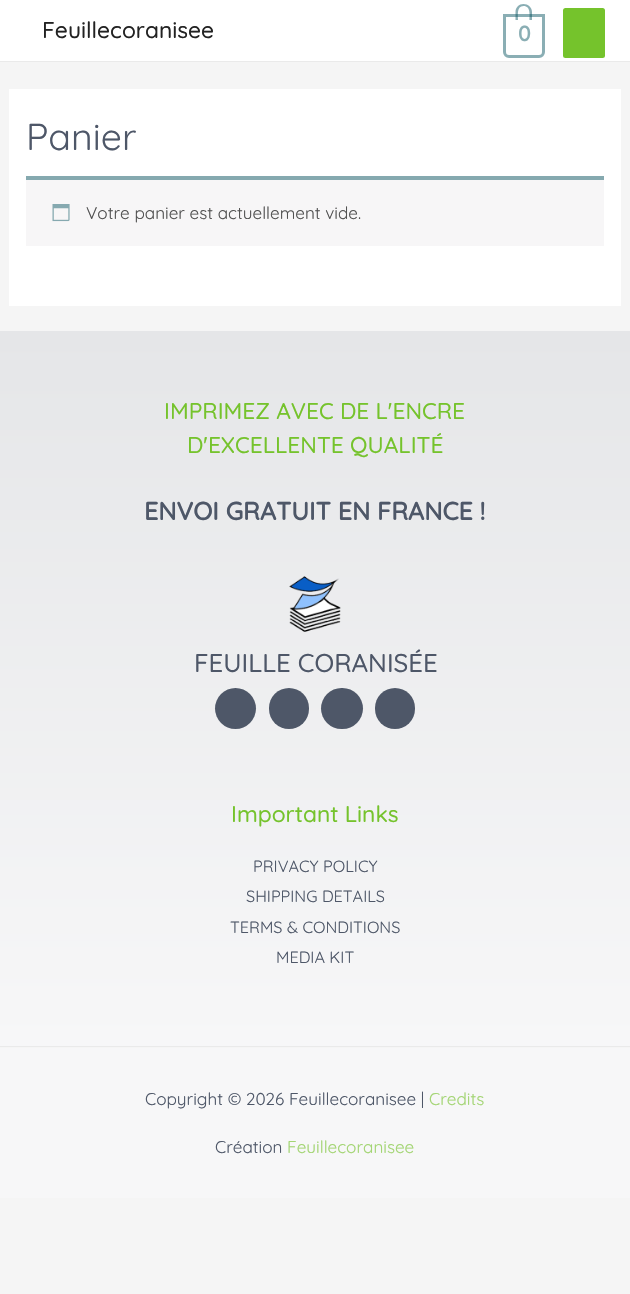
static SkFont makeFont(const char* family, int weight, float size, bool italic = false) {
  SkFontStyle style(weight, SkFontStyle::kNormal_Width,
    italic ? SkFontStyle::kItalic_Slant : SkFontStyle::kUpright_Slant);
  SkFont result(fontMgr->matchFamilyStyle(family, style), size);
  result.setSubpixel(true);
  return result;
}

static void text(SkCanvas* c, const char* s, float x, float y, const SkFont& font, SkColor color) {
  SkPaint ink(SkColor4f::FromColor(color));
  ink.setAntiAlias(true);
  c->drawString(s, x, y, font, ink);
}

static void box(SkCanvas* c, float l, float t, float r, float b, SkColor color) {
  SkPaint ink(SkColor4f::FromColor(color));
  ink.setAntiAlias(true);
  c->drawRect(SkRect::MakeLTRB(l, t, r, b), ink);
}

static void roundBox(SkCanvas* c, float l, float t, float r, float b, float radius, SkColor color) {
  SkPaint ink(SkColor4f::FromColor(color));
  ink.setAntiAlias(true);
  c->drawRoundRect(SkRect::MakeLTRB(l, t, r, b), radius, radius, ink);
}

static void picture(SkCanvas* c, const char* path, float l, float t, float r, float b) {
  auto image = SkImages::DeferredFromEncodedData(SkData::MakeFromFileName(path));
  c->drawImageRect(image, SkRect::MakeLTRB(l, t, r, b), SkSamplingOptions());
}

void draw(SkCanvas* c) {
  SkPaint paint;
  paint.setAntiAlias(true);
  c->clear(0xfff5f5f5);
  box(c, 0, 61, 630, 62, 0xffeaeaea);
  box(c, 0, 0, 630, 61, 0xffffffff);
  SkFont face1 = makeFont("Quicksand", 500, 22.75f);
  text(c, "Feuillecoranisee", 42, 38, face1, 0xff222222);
  paint.setStyle(SkPaint::kStroke_Style);
  paint.setStrokeWidth(3);
  paint.setColor(0xff8aaeb4);
  c->drawPath(SkPathBuilder().moveTo(504.5f, 15.5f).lineTo(543.5f, 15.5f).lineTo(543.5f, 52).cubicTo(543.5f, 54.5f, 541.5f, 56.5f, 539, 56.5f).lineTo(509, 56.5f).cubicTo(506.5f, 56.5f, 504.5f, 54.5f, 504.5f, 52).close().detach(), paint);
  paint.setStyle(SkPaint::kFill_Style);
  paint.setColor(0x75004f5b);
  c->drawPath(SkPathBuilder(SkPathFillType::kEvenOdd).moveTo(523.5f, 4).cubicTo(528, 4, 532, 7.5f, 532, 12).lineTo(532, 20).lineTo(515.5f, 20).lineTo(515.5f, 12).cubicTo(515.5f, 7.5f, 519, 4, 523.5f, 4).close().moveTo(523.5f, 6).cubicTo(531, 6, 529.5f, 15.5f, 529.5f, 20).lineTo(518, 20).cubicTo(518, 15.5f, 516.5f, 6, 523.5f, 6).close().detach(), paint);
  SkFont face2 = makeFont("Quicksand", 700, 21);
  text(c, "0", 518, 41, face2, 0xff8aaeb4);
  roundBox(c, 563, 8, 605, 58, 2.5f, 0xff75c32c);
  box(c, 9, 89, 621, 306, 0xffffffff);
  SkFont face3 = makeFont("Quicksand", 400, 37.5f);
  text(c, "Panier", 26, 150, face3, 0xff4e5768);
  box(c, 26, 180, 604, 246, 0xfff7f6f7);
  box(c, 26, 176, 604, 180, 0xff85a9af);
  picture(c, "img_01.png", 52, 204, 70, 222);
  SkFont face4 = makeFont("Quicksand", 400, 17.1f);
  text(c, "Votre panier est actuellement vide.", 86, 219, face4, 0xff515151);
  {
    const SkColor colors[] = {0xffe5e6e8, 0xfff7f7f8};
    const float stops[] = {0, 1};
    const SkPoint ends[] = {{315, 331}, {315, 1046}};
    paint.setShader(SkGradientShader::MakeLinear(ends, colors, stops, 2, SkTileMode::kClamp));
    paint.setAlpha(255);
  }
  c->drawRect(SkRect::MakeLTRB(0, 331, 630, 1046), paint);
  text(c, "IMPRIMEZ AVEC DE L'ENCRE", 164, 419, face1, 0xff75c32c);
  text(c, "D'EXCELLENTE QUALITÉ", 187, 453, face1, 0xff75c32c);
  SkFont face5 = makeFont("Quicksand", 700, 25);
  text(c, "ENVOI GRATUIT EN FRANCE !", 144, 520, face5, 0xff4e5768);
  picture(c, "img_02.png", 289, 576, 341, 632);
  SkFont face6 = makeFont("Quicksand", 500, 25.75f);
  text(c, "FEUILLE CORANISÉE", 194, 672, face6, 0xff4e5768);
  paint.setShader(nullptr);
  paint.setColor(0xff4e5768);
  c->drawCircle(235.5f, 708.5f, 20.5f, paint);
  roundBox(c, 269, 688, 309, 729, 20, 0xff4e5768);
  roundBox(c, 321, 688, 363, 729, 20.5f, 0xff4e5768);
  roundBox(c, 375, 688, 415, 729, 20, 0xff4e5768);
  text(c, "Important Links", 231, 822, face1, 0xff75c32c);
  SkFont face7 = makeFont("Quicksand", 400, 16.25f);
  text(c, "PRIVACY POLICY", 253, 872, face7, 0xff4e5768);
  text(c, "SHIPPING DETAILS", 246, 902, face7, 0xff4e5768);
  text(c, "TERMS & CONDITIONS", 230, 933, face7, 0xff4e5768);
  text(c, "MEDIA KIT", 276, 963, face7, 0xff4e5768);
  box(c, 0, 1046, 630, 1047, 0xffeaeaea);
  box(c, 0, 1048, 630, 1198, 0xfff7f7f8);
  text(c, "Copyright © 2026 Feuillecoranisee |", 145, 1105, face4, 0xff4e5768);
  text(c, "Credits", 429, 1105, face4, 0xffa3d573);
  text(c, "Création", 215, 1153, face4, 0xff4e5768);
  text(c, "Feuillecoranisee", 287, 1153, face4, 0xffa3d573);
}
